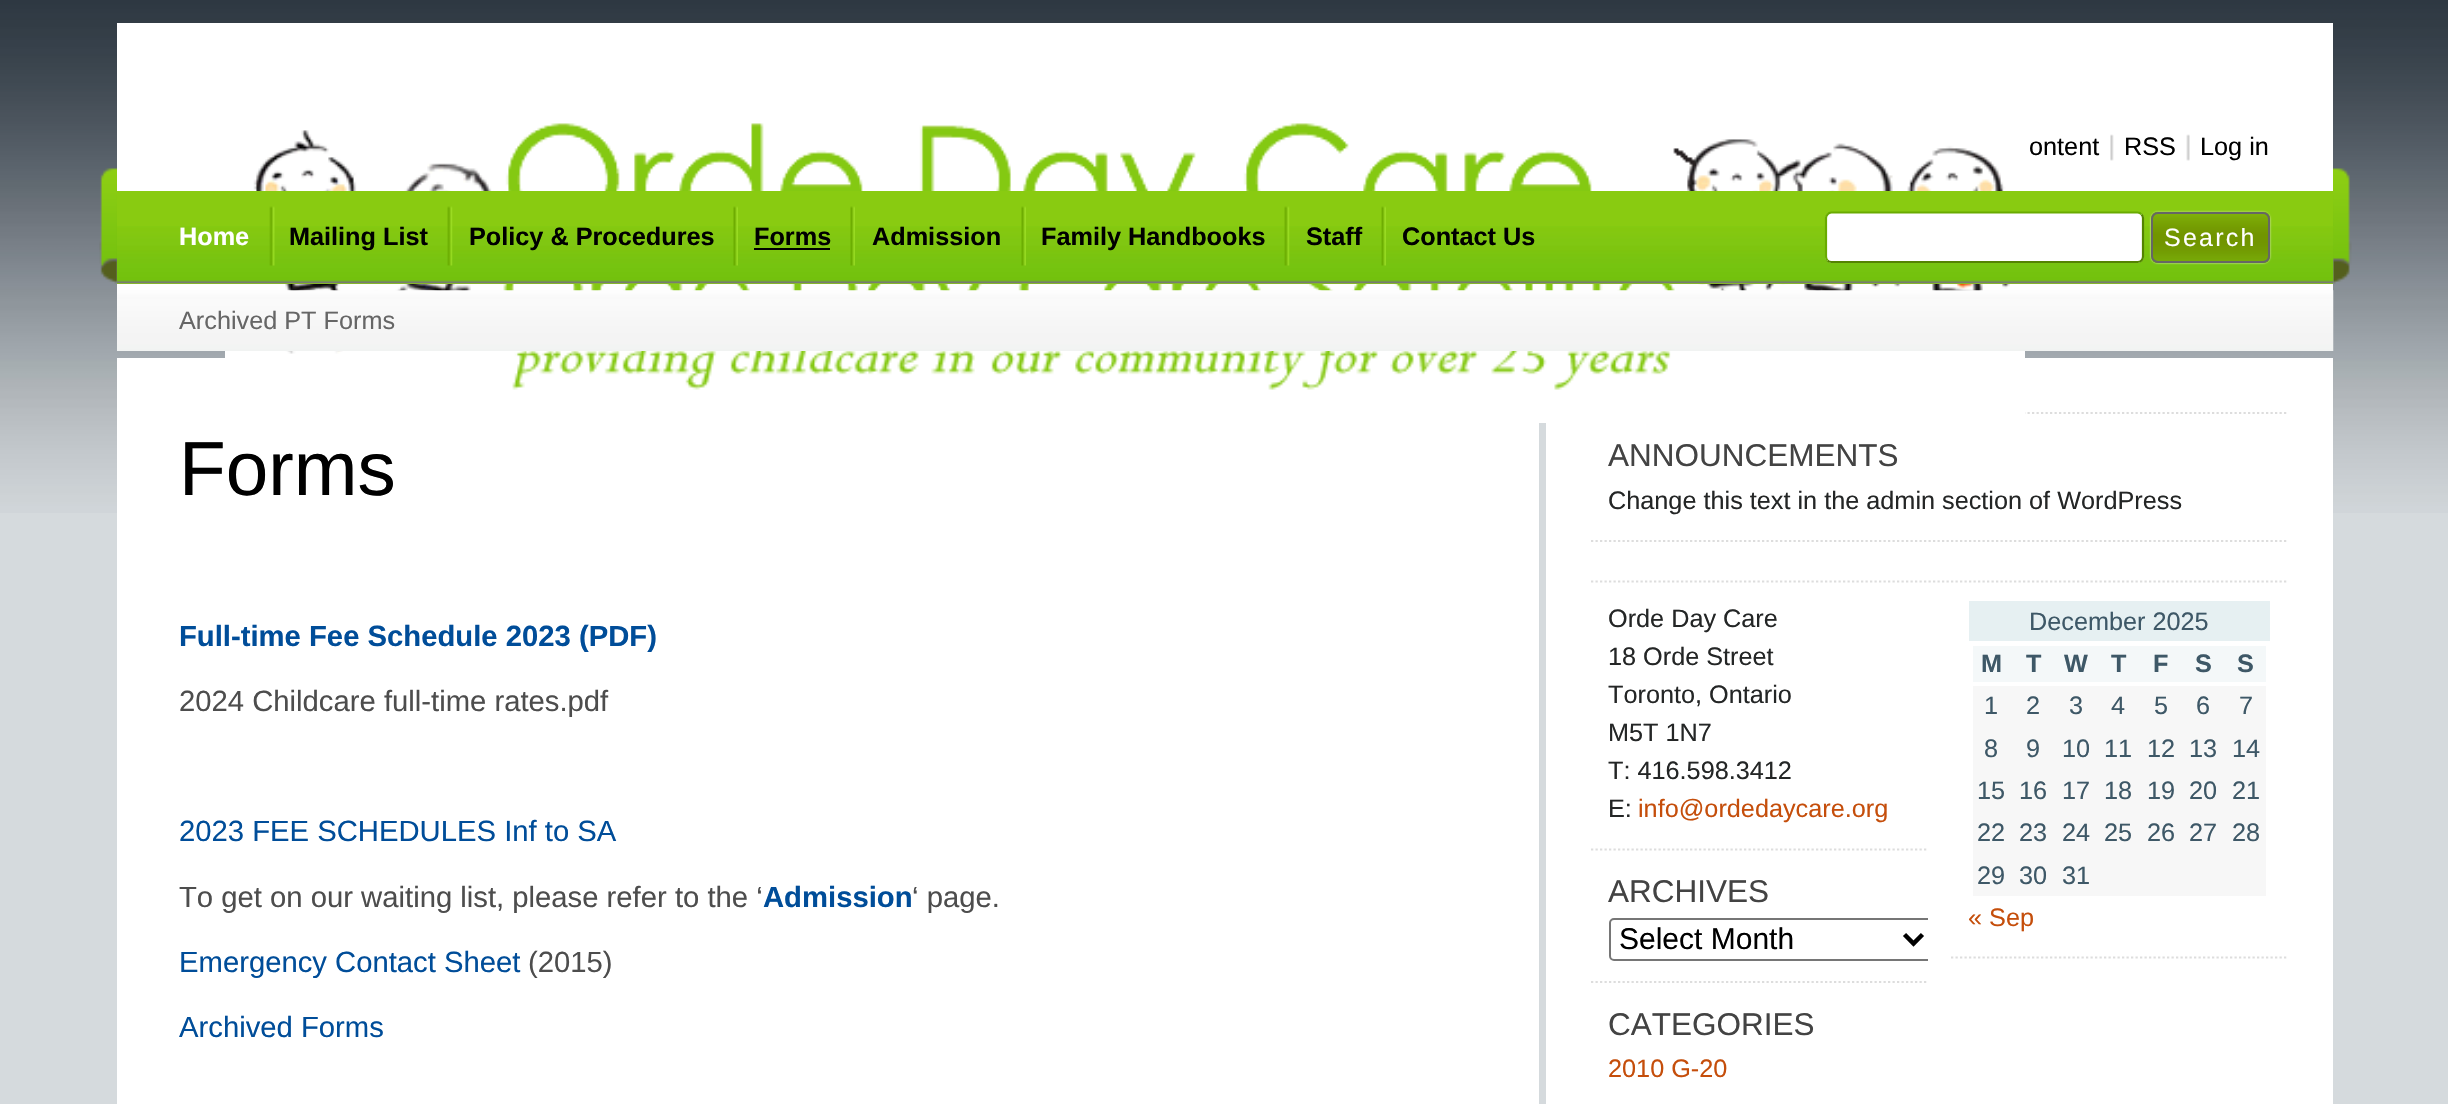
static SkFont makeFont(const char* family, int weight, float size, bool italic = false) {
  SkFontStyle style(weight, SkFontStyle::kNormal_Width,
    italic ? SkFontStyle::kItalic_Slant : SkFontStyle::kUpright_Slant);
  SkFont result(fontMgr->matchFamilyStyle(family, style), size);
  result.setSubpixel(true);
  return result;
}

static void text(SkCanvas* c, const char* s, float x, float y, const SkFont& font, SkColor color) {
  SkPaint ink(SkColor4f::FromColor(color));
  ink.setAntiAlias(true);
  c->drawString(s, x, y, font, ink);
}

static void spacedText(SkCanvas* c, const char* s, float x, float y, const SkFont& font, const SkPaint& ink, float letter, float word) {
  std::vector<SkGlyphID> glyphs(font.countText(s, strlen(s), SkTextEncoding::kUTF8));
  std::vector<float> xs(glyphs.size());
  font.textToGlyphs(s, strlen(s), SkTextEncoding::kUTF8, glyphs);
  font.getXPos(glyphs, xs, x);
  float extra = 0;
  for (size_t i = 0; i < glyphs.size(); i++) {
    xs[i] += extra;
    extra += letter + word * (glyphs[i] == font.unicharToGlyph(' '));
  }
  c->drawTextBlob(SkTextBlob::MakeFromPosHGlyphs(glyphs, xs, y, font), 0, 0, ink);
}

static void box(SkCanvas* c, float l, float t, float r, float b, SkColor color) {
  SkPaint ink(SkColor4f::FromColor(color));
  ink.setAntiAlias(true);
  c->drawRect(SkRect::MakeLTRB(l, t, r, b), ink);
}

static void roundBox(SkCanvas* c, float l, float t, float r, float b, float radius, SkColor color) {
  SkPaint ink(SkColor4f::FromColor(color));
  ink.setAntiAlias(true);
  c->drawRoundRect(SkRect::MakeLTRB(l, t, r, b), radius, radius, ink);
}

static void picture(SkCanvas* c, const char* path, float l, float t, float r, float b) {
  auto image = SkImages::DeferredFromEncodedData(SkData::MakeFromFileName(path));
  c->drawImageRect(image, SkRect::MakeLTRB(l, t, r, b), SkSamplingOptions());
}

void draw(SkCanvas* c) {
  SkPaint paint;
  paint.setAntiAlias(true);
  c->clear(0xffd5dadd);
  picture(c, "img_01.png", 0, 0, 2448, 513);
  picture(c, "img_02.png", 99, 168, 2352, 284);
  box(c, 117, 23, 2333, 291, 0xffffffff);
  box(c, 117, 358, 2333, 1104, 0xffffffff);
  paint.setStyle(SkPaint::kStroke_Style);
  paint.setStrokeWidth(2.2f);
  paint.setColor(0xffdddddd);
  paint.setPathEffect(SkDashPathEffect::Make({{2.25f, 2.25f}}, 0));
  c->drawPath(SkPathBuilder().moveTo(1591, 413).lineTo(2288, 413).detach(), paint);
  paint.setPathEffect(nullptr);
  picture(c, "img_03.png", 225, 123, 2025, 423);
  picture(c, "img_04.png", 2110, 134, 2114, 161);
  SkFont face1 = makeFont("Liberation Sans", 400, 25.25f);
  text(c, "ontent", 2029, 155, face1, 0xff000000);
  picture(c, "img_05.png", 2186, 134, 2190, 161);
  text(c, "RSS", 2124, 155, face1, 0xff000000);
  text(c, "Log in", 2200, 155, face1, 0xff000000);
  box(c, 117, 191, 2333, 284, 0xff89cb11);
  picture(c, "img_06.png", 117, 226, 2334, 284);
  SkFont face2 = makeFont("Liberation Sans", 700, 25.25f);
  text(c, "Home", 179, 245, face2, 0xffffffff);
  picture(c, "img_07.png", 269, 206, 275, 266);
  text(c, "Mailing List", 289, 245, face2, 0xff000000);
  picture(c, "img_08.png", 447, 206, 453, 266);
  text(c, "Policy & Procedures", 469, 245, face2, 0xff000000);
  picture(c, "img_09.png", 733, 206, 738, 266);
  text(c, "Forms", 754, 245, face2, 0xff000000);
  box(c, 754, 248, 830, 250, 0xff000000);
  picture(c, "img_09.png", 850, 206, 855, 266);
  text(c, "Admission", 872, 245, face2, 0xff000000);
  picture(c, "img_09.png", 1021, 206, 1026, 266);
  text(c, "Family Handbooks", 1041, 245, face2, 0xff000000);
  picture(c, "img_08.png", 1284, 206, 1290, 266);
  text(c, "Staff", 1306, 245, face2, 0xff000000);
  picture(c, "img_10.png", 1381, 206, 1386, 266);
  text(c, "Contact Us", 1402, 245, face2, 0xff000000);
  roundBox(c, 1825, 212, 2144, 263, 7, 0xffffffff);
  paint.setColor(0xff548301);
  c->drawPath(SkPathBuilder().moveTo(2141.5f, 214.5f).cubicTo(2142.5f, 215.5f, 2143, 217, 2143, 218).lineTo(2143, 256.5f).cubicTo(2143, 258, 2142.5f, 259.5f, 2141.5f, 260.5f).cubicTo(2140.5f, 261.5f, 2139, 262, 2137.5f, 262).lineTo(1831.5f, 262).cubicTo(1830, 262, 1828.5f, 261.5f, 1827.5f, 260.5f).detach(), paint);
  paint.setColor(0xff69ab01);
  c->drawPath(SkPathBuilder().moveTo(1827.5f, 260.5f).cubicTo(1826.5f, 259.5f, 1826, 258, 1826, 256.5f).lineTo(1826, 218).cubicTo(1826, 217, 1826.5f, 215.5f, 1827.5f, 214.5f).cubicTo(1828.5f, 213, 1830, 212.5f, 1831.5f, 212.5f).lineTo(2137.5f, 212.5f).cubicTo(2139, 212.5f, 2140.5f, 213, 2141.5f, 214.5f).detach(), paint);
  paint.setStyle(SkPaint::kFill_Style);
  paint.setColor(0xffffffff);
  paint.setMaskFilter(SkMaskFilter::MakeBlur(kNormal_SkBlurStyle, 1));
  c->drawRoundRect(SkRect::MakeLTRB(2151, 212, 2270, 263), 7, 7, paint);
  paint.setMaskFilter(nullptr);
  picture(c, "img_11.png", 2151, 211, 2271, 264);
  paint.setStyle(SkPaint::kStroke_Style);
  paint.setStrokeWidth(2);
  paint.setColor(0xff666666);
  c->drawRoundRect(SkRect::MakeLTRB(2152, 213, 2269, 262), 6, 6, paint);
  SkFont face3 = makeFont("Liberation Sans", 400, 25);
  paint.setStyle(SkPaint::kFill_Style);
  paint.setColor(0xffffffff);
  spacedText(c, "Search", 2164, 246, face3, paint, 2.25f, 0);
  picture(c, "img_12.png", 117, 290, 2334, 351);
  text(c, "Archived PT Forms", 179, 329, face1, 0xff666666);
  SkFont face4 = makeFont("Liberation Sans", 400, 76.5f);
  text(c, "Forms", 179, 495, face4, 0xff000000);
  SkFont face5 = makeFont("Liberation Sans", 700, 29.25f);
  text(c, "Full-time Fee Schedule 2023 (PDF)", 179, 646, face5, 0xff004d99);
  SkFont face6 = makeFont("Liberation Sans", 400, 29.25f);
  text(c, "2024 Childcare full-time rates.pdf", 179, 711, face6, 0xff4d4d4d);
  text(c, "2023 FEE SCHEDULES Inf to SA", 179, 841, face6, 0xff004d99);
  text(c, "To get on our waiting list, please refer to the ‘", 179, 907, face6, 0xff4d4d4d);
  text(c, "Admission", 763, 907, face5, 0xff004d99);
  text(c, "‘ page.", 912, 907, face6, 0xff4d4d4d);
  text(c, "Emergency Contact Sheet", 179, 972, face6, 0xff004d99);
  text(c, "(2015)", 528, 972, face6, 0xff4d4d4d);
  text(c, "Archived Forms", 179, 1037, face6, 0xff004d99);
  box(c, 1539, 423, 1546, 1104, 0xffd5dadd);
  paint.setStyle(SkPaint::kStroke_Style);
  paint.setStrokeWidth(2.2f);
  paint.setColor(0xffdddddd);
  paint.setPathEffect(SkDashPathEffect::Make({{2.25f, 2.25f}}, 0));
  c->drawPath(SkPathBuilder().moveTo(1591, 541).lineTo(2288, 541).detach(), paint);
  paint.setPathEffect(nullptr);
  SkFont face7 = makeFont("Liberation Sans", 400, 31.5f);
  text(c, "ANNOUNCEMENTS", 1608, 466, face7, 0xff434343);
  text(c, "Change this text in the admin section of WordPress", 1608, 509, face1, 0xff242626);
  paint.setPathEffect(SkDashPathEffect::Make({{2.25f, 2.25f}}, 0));
  c->drawPath(SkPathBuilder().moveTo(1591, 581.5f).lineTo(2288, 581.5f).detach(), paint);
  paint.setPathEffect(nullptr);
  paint.setPathEffect(SkDashPathEffect::Make({{2.25f, 2.25f}}, 0));
  c->drawPath(SkPathBuilder().moveTo(1591, 849.5f).lineTo(1928, 849.5f).detach(), paint);
  paint.setPathEffect(nullptr);
  text(c, "Orde Day Care", 1608, 627, face1, 0xff242626);
  text(c, "18 Orde Street", 1608, 665, face1, 0xff242626);
  text(c, "Toronto, Ontario", 1608, 703, face1, 0xff242626);
  text(c, "M5T 1N7", 1608, 741, face1, 0xff242626);
  text(c, "T: 416.598.3412", 1608, 779, face1, 0xff242626);
  text(c, "E:", 1608, 817, face1, 0xff242626);
  text(c, "info@ordedaycare.org", 1638, 817, face1, 0xffc54e0b);
  paint.setPathEffect(SkDashPathEffect::Make({{2.25f, 2.25f}}, 0));
  c->drawPath(SkPathBuilder().moveTo(1591, 982).lineTo(1928, 982).detach(), paint);
  paint.setPathEffect(nullptr);
  text(c, "ARCHIVES", 1608, 902, face7, 0xff434343);
  c->save();
  c->clipRect(SkRect::MakeLTRB(1591, 601, 1928, 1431));
  paint.setStrokeWidth(2);
  paint.setColor(0xff767676);
  c->drawRoundRect(SkRect::MakeLTRB(1610, 919, 1934, 960), 4, 4, paint);
  c->restore();
  paint.setStrokeWidth(4.5f);
  paint.setColor(0xff000000);
  c->drawPath(SkPathBuilder().moveTo(1904.5f, 934.5f).lineTo(1913.5f, 943.5f).lineTo(1922.5f, 934.5f).detach(), paint);
  SkFont face8 = makeFont("Liberation Sans", 400, 30);
  text(c, "Select Month", 1619, 949, face8, 0xff000000);
  text(c, "CATEGORIES", 1608, 1035, face7, 0xff434343);
  text(c, "2010 G-20", 1608, 1077, face1, 0xffc54e0b);
  paint.setStrokeWidth(2.2f);
  paint.setColor(0xffdddddd);
  paint.setPathEffect(SkDashPathEffect::Make({{2.25f, 2.25f}}, 0));
  c->drawPath(SkPathBuilder().moveTo(1951, 957.5f).lineTo(2288, 957.5f).detach(), paint);
  paint.setPathEffect(nullptr);
  box(c, 1969, 601, 2270, 641, 0xffe6f0f2);
  text(c, "December 2025", 2029, 630, face1, 0xff3e5867);
  box(c, 1973, 646, 2266, 682, 0xfff4f8f9);
  text(c, "M", 1981, 672, face2, 0xff3e5867);
  text(c, "T", 2026, 672, face2, 0xff3e5867);
  text(c, "W", 2064, 672, face2, 0xff3e5867);
  text(c, "T", 2111, 672, face2, 0xff3e5867);
  text(c, "F", 2153, 672, face2, 0xff3e5867);
  text(c, "S", 2195, 672, face2, 0xff3e5867);
  text(c, "S", 2237, 672, face2, 0xff3e5867);
  box(c, 1973, 686, 2266, 896, 0xfff7f7f7);
  text(c, "1", 1984, 714, face1, 0xff3e5867);
  text(c, "2", 2026, 714, face1, 0xff3e5867);
  text(c, "3", 2069, 714, face1, 0xff3e5867);
  text(c, "4", 2111, 714, face1, 0xff3e5867);
  text(c, "5", 2154, 714, face1, 0xff3e5867);
  text(c, "6", 2196, 714, face1, 0xff3e5867);
  text(c, "7", 2239, 714, face1, 0xff3e5867);
  text(c, "8", 1984, 757, face1, 0xff3e5867);
  text(c, "9", 2026, 757, face1, 0xff3e5867);
  text(c, "10", 2062, 757, face1, 0xff3e5867);
  text(c, "11", 2104, 757, face1, 0xff3e5867);
  text(c, "12", 2147, 757, face1, 0xff3e5867);
  text(c, "13", 2189, 757, face1, 0xff3e5867);
  text(c, "14", 2232, 757, face1, 0xff3e5867);
  text(c, "15", 1977, 799, face1, 0xff3e5867);
  text(c, "16", 2019, 799, face1, 0xff3e5867);
  text(c, "17", 2062, 799, face1, 0xff3e5867);
  text(c, "18", 2104, 799, face1, 0xff3e5867);
  text(c, "19", 2147, 799, face1, 0xff3e5867);
  text(c, "20", 2189, 799, face1, 0xff3e5867);
  text(c, "21", 2232, 799, face1, 0xff3e5867);
  text(c, "22", 1977, 841, face1, 0xff3e5867);
  text(c, "23", 2019, 841, face1, 0xff3e5867);
  text(c, "24", 2062, 841, face1, 0xff3e5867);
  text(c, "25", 2104, 841, face1, 0xff3e5867);
  text(c, "26", 2147, 841, face1, 0xff3e5867);
  text(c, "27", 2189, 841, face1, 0xff3e5867);
  text(c, "28", 2232, 841, face1, 0xff3e5867);
  text(c, "29", 1977, 884, face1, 0xff3e5867);
  text(c, "30", 2019, 884, face1, 0xff3e5867);
  text(c, "31", 2062, 884, face1, 0xff3e5867);
  text(c, "« Sep", 1968, 926, face1, 0xffc54e0b);
}
